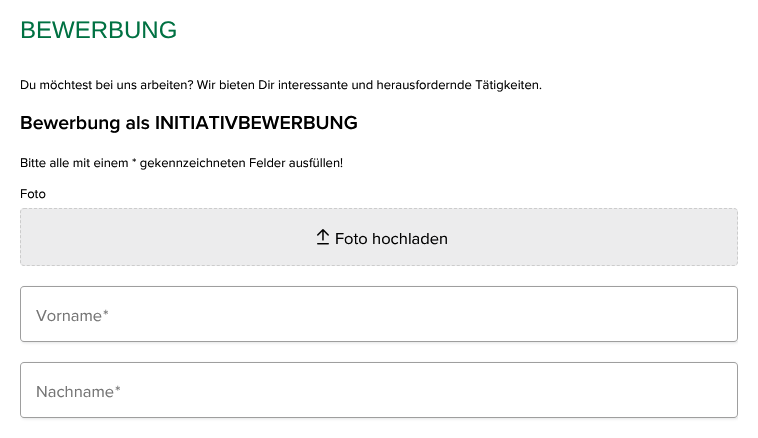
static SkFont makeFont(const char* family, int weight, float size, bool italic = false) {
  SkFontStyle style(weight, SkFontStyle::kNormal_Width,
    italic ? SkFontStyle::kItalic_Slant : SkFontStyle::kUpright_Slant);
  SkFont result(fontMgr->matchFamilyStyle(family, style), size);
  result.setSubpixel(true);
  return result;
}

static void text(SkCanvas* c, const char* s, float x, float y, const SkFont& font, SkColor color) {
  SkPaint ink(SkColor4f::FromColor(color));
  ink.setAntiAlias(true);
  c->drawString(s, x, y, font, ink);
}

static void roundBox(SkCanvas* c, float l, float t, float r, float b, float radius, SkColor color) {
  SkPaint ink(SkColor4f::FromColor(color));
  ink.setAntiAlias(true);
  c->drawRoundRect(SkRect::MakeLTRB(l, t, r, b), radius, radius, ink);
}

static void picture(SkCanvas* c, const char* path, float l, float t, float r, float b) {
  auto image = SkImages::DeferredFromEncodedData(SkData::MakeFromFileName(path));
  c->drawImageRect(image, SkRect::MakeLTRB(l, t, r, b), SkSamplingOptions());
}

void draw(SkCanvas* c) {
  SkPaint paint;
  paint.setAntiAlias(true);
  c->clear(0xffffffff);
  SkFont face1 = makeFont("Liberation Sans", 400, 24);
  text(c, "BEWERBUNG", 20, 38, face1, 0xff007142);
  SkFont face2 = makeFont("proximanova", 400, 13);
  text(c, "Du möchtest bei uns arbeiten? Wir bieten Dir interessante und herausfordernde Tätigkeiten.", 20, 89, face2, 0xff000000);
  SkFont face3 = makeFont("proximanova", 600, 19.5f);
  text(c, "Bewerbung als INITIATIVBEWERBUNG", 20, 129, face3, 0xff000000);
  text(c, "Bitte alle mit einem * gekennzeichneten Felder ausfüllen!", 20, 167, face2, 0xff000000);
  text(c, "Foto", 20, 198, face2, 0xff000000);
  roundBox(c, 20, 208, 738, 266, 4, 0xffececed);
  paint.setStyle(SkPaint::kStroke_Style);
  paint.setStrokeWidth(1);
  paint.setColor(0xffcccccc);
  paint.setPathEffect(SkDashPathEffect::Make({{3, 2}}, 0));
  c->drawPath(SkPathBuilder().moveTo(24, 208.5f).lineTo(734, 208.5f).cubicTo(736, 208.5f, 737.5f, 210, 737.5f, 212).lineTo(737.5f, 262).cubicTo(737.5f, 264, 736, 265.5f, 734, 265.5f).lineTo(24, 265.5f).cubicTo(22, 265.5f, 20.5f, 264, 20.5f, 262).lineTo(20.5f, 212).cubicTo(20.5f, 210, 22, 208.5f, 24, 208.5f).close().detach(), paint);
  paint.setPathEffect(nullptr);
  picture(c, "img_01.png", 317, 229, 329, 245);
  SkFont face4 = makeFont("proximanova", 400, 16.5f);
  text(c, "Foto hochladen", 335, 244, face4, 0xff000000);
  c->save();
  c->clipRect(SkRect::MakeLTRB(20, 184, 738, 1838));
  paint.setStyle(SkPaint::kFill_Style);
  paint.setColor(0x2645494e);
  paint.setMaskFilter(SkMaskFilter::MakeBlur(kNormal_SkBlurStyle, 1.5f));
  c->drawRoundRect(SkRect::MakeLTRB(21, 287, 739, 343), 4, 4, paint);
  paint.setMaskFilter(nullptr);
  c->restore();
  roundBox(c, 20, 286, 738, 342, 4, 0xffffffff);
  paint.setColor(0xff9e9e9e);
  c->drawPath(SkPathBuilder(SkPathFillType::kEvenOdd).moveTo(24, 286).lineTo(32, 286).lineTo(32, 342).lineTo(24, 342).cubicTo(22, 342, 20, 340, 20, 338).lineTo(20, 290).cubicTo(20, 288, 22, 286, 24, 286).close().moveTo(24, 287).lineTo(32, 287).lineTo(32, 341).lineTo(24, 341).cubicTo(22, 341, 21, 340, 21, 338).lineTo(21, 290).cubicTo(21, 288, 22, 287, 24, 287).close().detach(), paint);
  c->drawPath(SkPathBuilder().moveTo(31, 286).lineTo(105, 286).lineTo(105, 287).lineTo(32, 287).close().detach(), paint);
  c->drawPath(SkPathBuilder().moveTo(105, 342).lineTo(31, 342).lineTo(32, 341).lineTo(105, 341).close().detach(), paint);
  text(c, "Vorname", 36, 321, face4, 0xff757575);
  c->drawPath(SkPathBuilder(SkPathFillType::kEvenOdd).moveTo(105, 286).lineTo(734, 286).cubicTo(736, 286, 738, 288, 738, 290).lineTo(738, 338).cubicTo(738, 340, 736, 342, 734, 342).lineTo(105, 342).close().moveTo(105, 287).lineTo(734, 287).cubicTo(736, 287, 737, 288, 737, 290).lineTo(737, 338).cubicTo(737, 340, 736, 341, 734, 341).lineTo(105, 341).close().detach(), paint);
  text(c, "*", 103, 321, face4, 0xff757575);
  c->save();
  c->clipRect(SkRect::MakeLTRB(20, 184, 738, 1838));
  paint.setColor(0x2645494e);
  paint.setMaskFilter(SkMaskFilter::MakeBlur(kNormal_SkBlurStyle, 1.5f));
  c->drawRoundRect(SkRect::MakeLTRB(21, 363, 739, 419), 4, 4, paint);
  paint.setMaskFilter(nullptr);
  c->restore();
  roundBox(c, 20, 362, 738, 418, 4, 0xffffffff);
  paint.setColor(0xff9e9e9e);
  c->drawPath(SkPathBuilder(SkPathFillType::kEvenOdd).moveTo(24, 362).lineTo(32, 362).lineTo(32, 418).lineTo(24, 418).cubicTo(22, 418, 20, 416, 20, 414).lineTo(20, 366).cubicTo(20, 364, 22, 362, 24, 362).close().moveTo(24, 363).lineTo(32, 363).lineTo(32, 417).lineTo(24, 417).cubicTo(22, 417, 21, 416, 21, 414).lineTo(21, 366).cubicTo(21, 364, 22, 363, 24, 363).close().detach(), paint);
  c->drawPath(SkPathBuilder().moveTo(31, 362).lineTo(116, 362).lineTo(116, 363).lineTo(32, 363).close().detach(), paint);
  c->drawPath(SkPathBuilder().moveTo(116, 418).lineTo(31, 418).lineTo(32, 417).lineTo(116, 417).close().detach(), paint);
  text(c, "Nachname", 36, 397, face4, 0xff757575);
  c->drawPath(SkPathBuilder(SkPathFillType::kEvenOdd).moveTo(116, 362).lineTo(734, 362).cubicTo(736, 362, 738, 364, 738, 366).lineTo(738, 414).cubicTo(738, 416, 736, 418, 734, 418).lineTo(116, 418).close().moveTo(116, 363).lineTo(734, 363).cubicTo(736, 363, 737, 364, 737, 366).lineTo(737, 414).cubicTo(737, 416, 736, 417, 734, 417).lineTo(116, 417).close().detach(), paint);
  text(c, "*", 115, 397, face4, 0xff757575);
}
